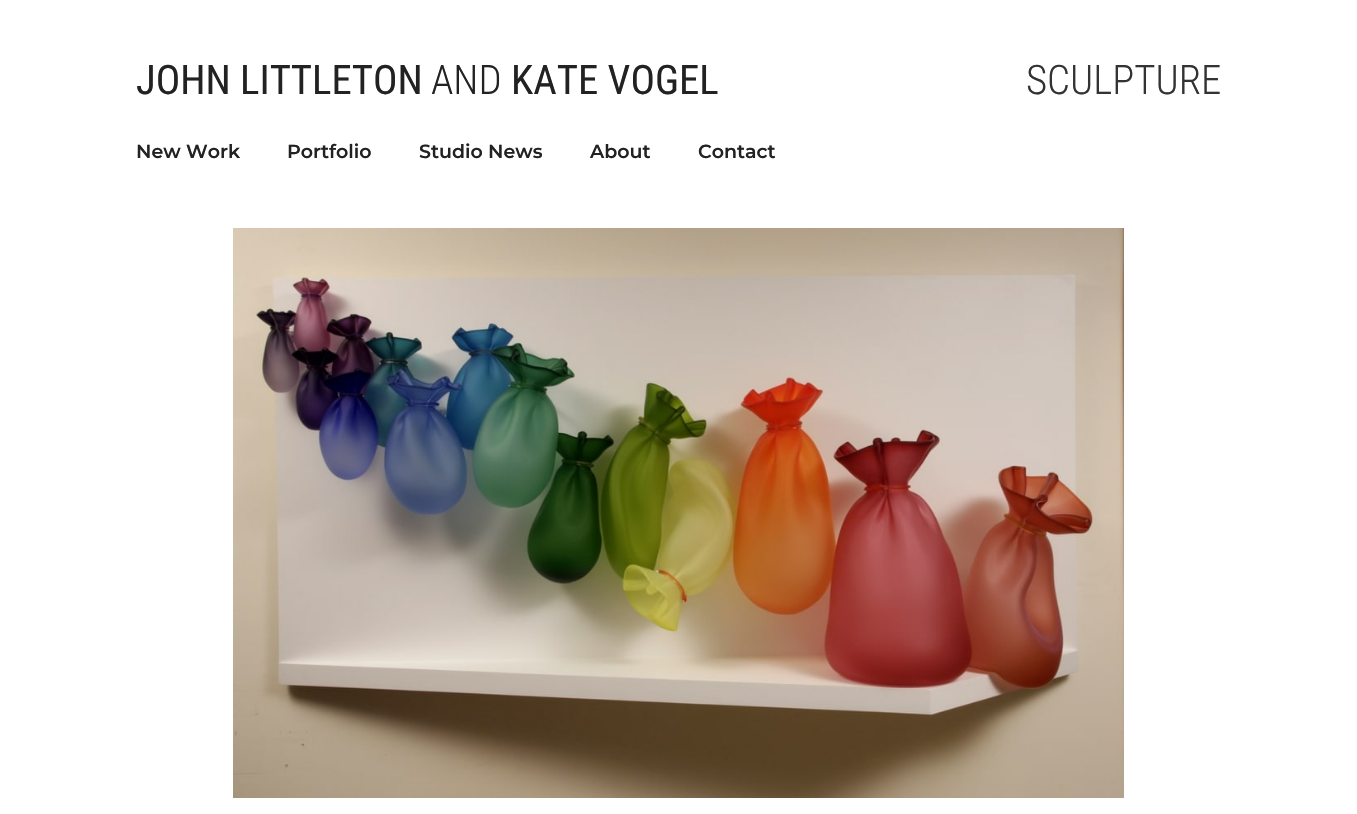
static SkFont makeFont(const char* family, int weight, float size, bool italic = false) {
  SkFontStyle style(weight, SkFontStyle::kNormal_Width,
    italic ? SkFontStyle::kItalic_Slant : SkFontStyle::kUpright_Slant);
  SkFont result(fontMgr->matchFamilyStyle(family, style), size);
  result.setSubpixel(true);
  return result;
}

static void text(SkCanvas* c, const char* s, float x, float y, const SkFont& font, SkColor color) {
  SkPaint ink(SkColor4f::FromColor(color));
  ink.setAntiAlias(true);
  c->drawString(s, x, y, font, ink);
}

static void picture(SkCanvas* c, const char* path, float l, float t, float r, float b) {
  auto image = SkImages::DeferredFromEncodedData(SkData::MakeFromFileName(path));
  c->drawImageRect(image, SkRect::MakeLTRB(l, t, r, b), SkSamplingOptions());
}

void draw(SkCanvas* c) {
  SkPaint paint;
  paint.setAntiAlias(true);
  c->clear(0xffffffff);
  SkFont face1 = makeFont("Roboto Condensed", 400, 40.75f);
  text(c, "JOHN LITTLETON", 136, 94, face1, 0xff222222);
  SkFont face2 = makeFont("Roboto Condensed", 300, 40.75f);
  text(c, "AND", 431, 94, face2, 0xff222222);
  text(c, "KATE VOGEL", 511, 94, face1, 0xff222222);
  text(c, "SCULPTURE", 1026, 94, face2, 0xff333333);
  SkFont face3 = makeFont("Montserrat", 600, 19);
  text(c, "New Work", 136, 158, face3, 0xff222222);
  text(c, "Portfolio", 287, 158, face3, 0xff222222);
  text(c, "Studio News", 419, 158, face3, 0xff222222);
  text(c, "About", 590, 158, face3, 0xff222222);
  text(c, "Contact", 698, 158, face3, 0xff222222);
  picture(c, "img_01.png", 233, 228, 1124, 798);
}
